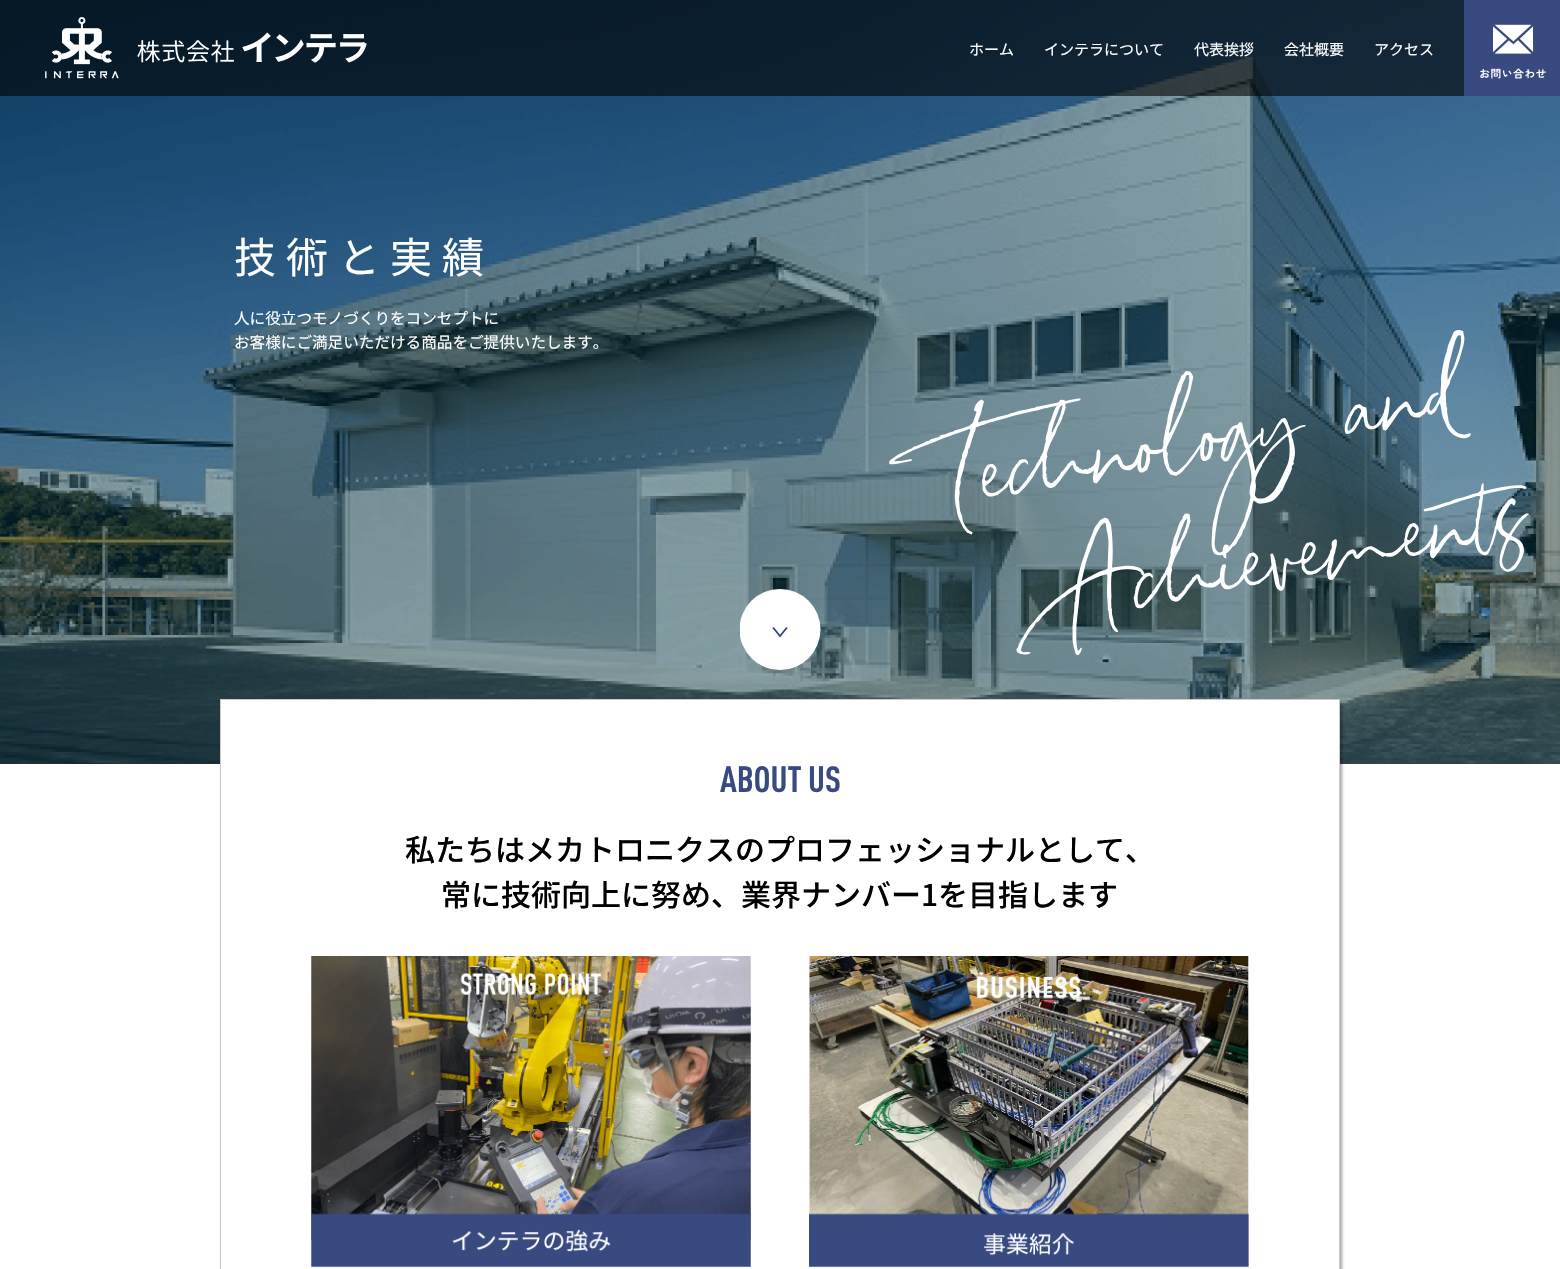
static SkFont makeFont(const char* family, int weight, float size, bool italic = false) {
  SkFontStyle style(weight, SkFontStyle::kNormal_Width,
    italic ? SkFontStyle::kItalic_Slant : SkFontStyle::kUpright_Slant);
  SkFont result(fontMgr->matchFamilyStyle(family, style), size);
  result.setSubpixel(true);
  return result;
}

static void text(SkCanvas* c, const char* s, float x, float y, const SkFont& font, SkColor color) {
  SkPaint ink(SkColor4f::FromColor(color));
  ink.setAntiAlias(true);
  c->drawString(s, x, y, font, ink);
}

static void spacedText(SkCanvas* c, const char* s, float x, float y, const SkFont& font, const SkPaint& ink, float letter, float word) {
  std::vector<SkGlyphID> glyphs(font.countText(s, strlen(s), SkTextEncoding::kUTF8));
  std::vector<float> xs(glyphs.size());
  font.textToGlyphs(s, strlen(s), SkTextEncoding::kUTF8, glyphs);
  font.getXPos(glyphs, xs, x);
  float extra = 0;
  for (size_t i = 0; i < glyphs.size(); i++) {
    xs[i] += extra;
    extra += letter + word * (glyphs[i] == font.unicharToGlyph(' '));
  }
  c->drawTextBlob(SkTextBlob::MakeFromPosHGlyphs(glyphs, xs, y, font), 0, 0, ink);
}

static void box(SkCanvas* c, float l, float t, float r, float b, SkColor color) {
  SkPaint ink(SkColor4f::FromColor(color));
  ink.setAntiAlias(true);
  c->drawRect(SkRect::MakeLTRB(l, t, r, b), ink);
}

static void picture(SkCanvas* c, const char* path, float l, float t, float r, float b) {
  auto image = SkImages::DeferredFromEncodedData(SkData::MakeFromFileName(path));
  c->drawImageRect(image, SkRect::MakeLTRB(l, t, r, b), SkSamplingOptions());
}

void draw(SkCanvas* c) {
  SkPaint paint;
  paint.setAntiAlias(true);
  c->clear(0xffffffff);
  picture(c, "img_03.png", 0, 0, 1560, 764);
  box(c, 0, 0, 1464, 96, 0x99000000);
  picture(c, "img_01.png", 45, 17, 367, 79);
  SkFont face1 = makeFont("Noto Sans JP", 400, 15);
  text(c, "ホーム", 969, 55, face1, 0xffffffff);
  text(c, "インテラについて", 1044, 55, face1, 0xffffffff);
  text(c, "代表挨拶", 1194, 55, face1, 0xffffffff);
  text(c, "会社概要", 1284, 55, face1, 0xffffffff);
  text(c, "アクセス", 1374, 55, face1, 0xffffffff);
  picture(c, "img_02.png", 1464, 0, 1560, 96);
  SkFont face2 = makeFont("Noto Sans JP", 400, 42);
  paint.setColor(0xffffffff);
  spacedText(c, "技術と実績", 234, 273, face2, paint, 10, 0);
  SkFont face3 = makeFont("Noto Sans JP", 400, 15.6f);
  text(c, "人に役立つモノづくりをコンセプトに", 234, 324, face3, 0xffffffff);
  text(c, "お客様にご満足いただける商品をご提供いたします。", 234, 348, face3, 0xffffffff);
  c->save();
  c->clipRect(SkRect::MakeLTRB(740, 589, 821, 670));
  c->drawCircle(780, 629.5f, 40.5f, paint);
  c->restore();
  paint.setStyle(SkPaint::kStroke_Style);
  paint.setStrokeWidth(1.9f);
  paint.setColor(0xff394a80);
  c->drawPath(SkPathBuilder().moveTo(787, 627.5f).lineTo(780, 636).lineTo(773, 627.5f).detach(), paint);
  picture(c, "img_04.png", 889, 330, 1529, 655);
  paint.setStyle(SkPaint::kFill_Style);
  paint.setColor(0x59000000);
  paint.setMaskFilter(SkMaskFilter::MakeBlur(kNormal_SkBlurStyle, 1.5f));
  c->drawRect(SkRect::MakeLTRB(222, 702, 1342, 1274), paint);
  paint.setMaskFilter(nullptr);
  paint.setColor(0xffffffff);
  c->drawRect(SkRect::MakeLTRB(220.5f, 699.5f, 1339.5f, 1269.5f), paint);
  paint.setStyle(SkPaint::kStroke_Style);
  paint.setStrokeWidth(1);
  paint.setColor(0xffcacaca);
  c->drawRect(SkRect::MakeLTRB(220.5f, 699.5f, 1339.5f, 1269.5f), paint);
  SkFont face4 = makeFont("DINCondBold", 700, 36);
  text(c, "ABOUT US", 720, 792, face4, 0xff394a80);
  SkFont face5 = makeFont("Noto Sans JP", 500, 30);
  text(c, "私たちはメカトロニクスのプロフェッショナルとして、", 405, 861, face5, 0xff000000);
  text(c, "常に技術向上に努め、業界ナンバー1を目指します", 441, 906, face5, 0xff000000);
  picture(c, "img_05.png", 311, 956, 751, 1267);
  picture(c, "img_06.png", 809, 956, 1249, 1267);
}
